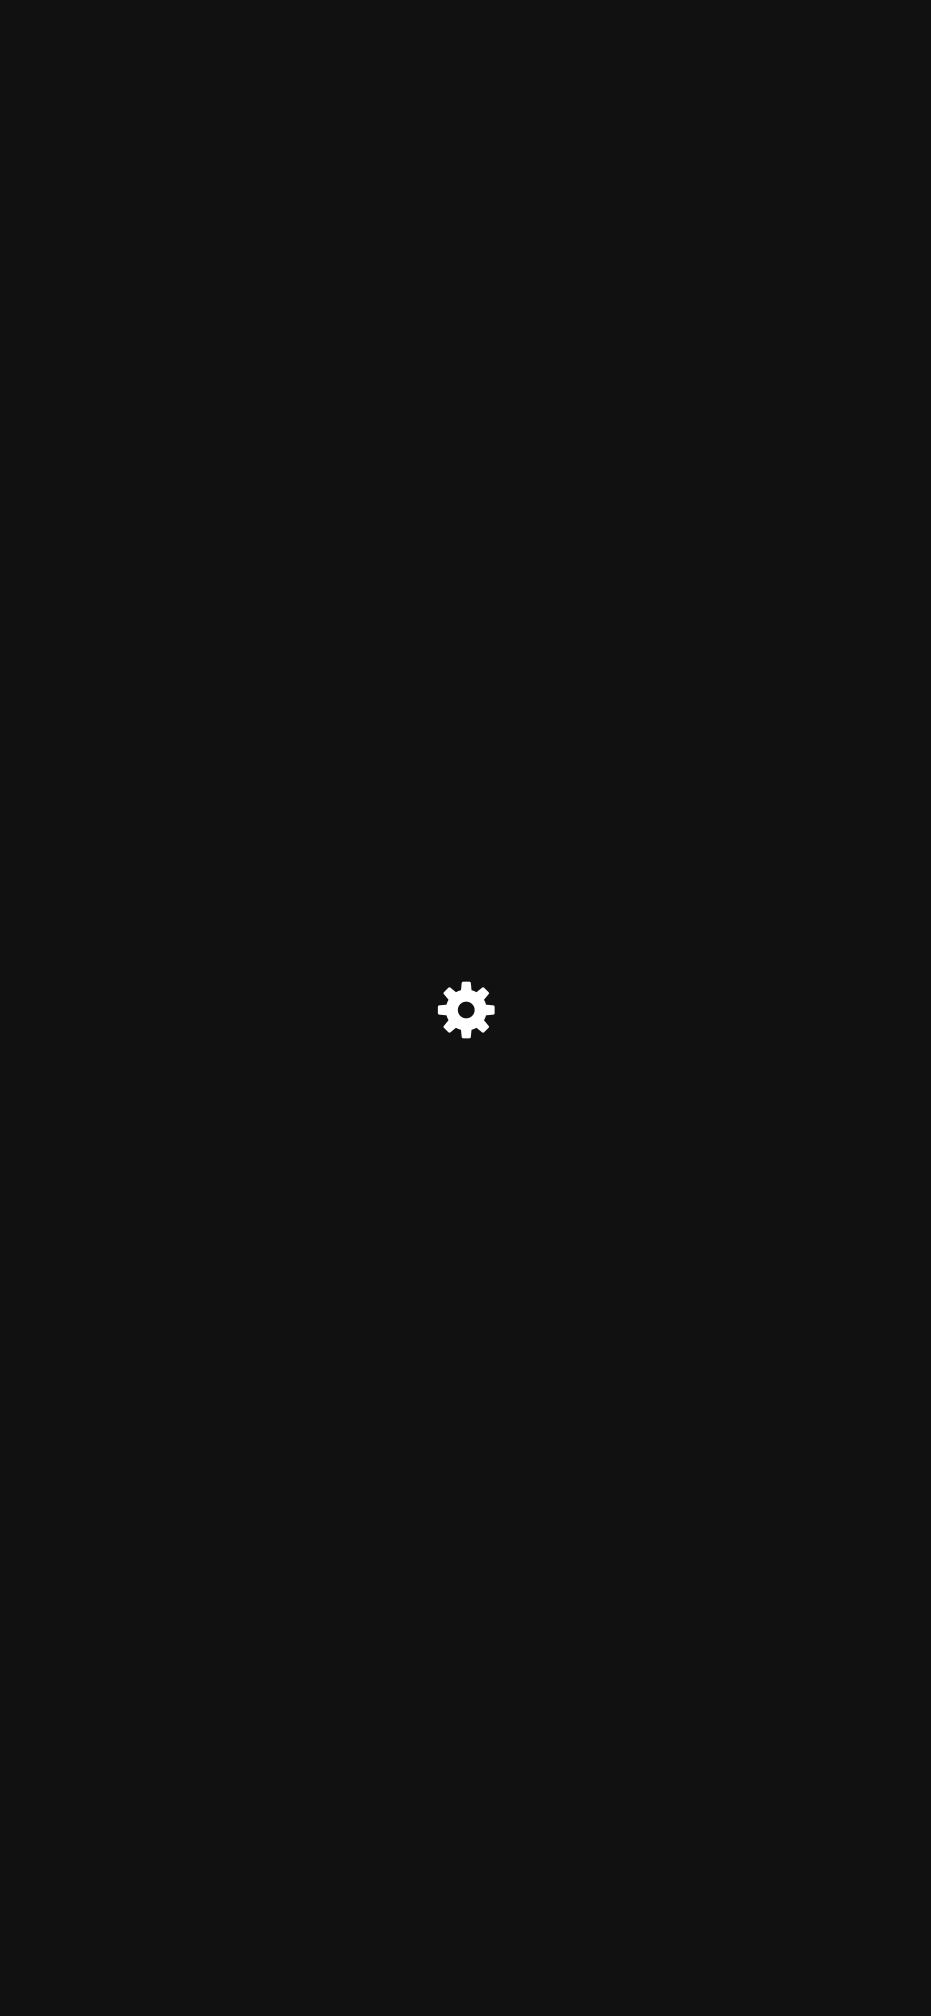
static void picture(SkCanvas* c, const char* path, float l, float t, float r, float b) {
  auto image = SkImages::DeferredFromEncodedData(SkData::MakeFromFileName(path));
  c->drawImageRect(image, SkRect::MakeLTRB(l, t, r, b), SkSamplingOptions());
}

void draw(SkCanvas* c) {
  SkPaint paint;
  paint.setAntiAlias(true);
  c->clear(0xff111111);
  picture(c, "img_01.png", 437, 981, 495, 1039);
}
